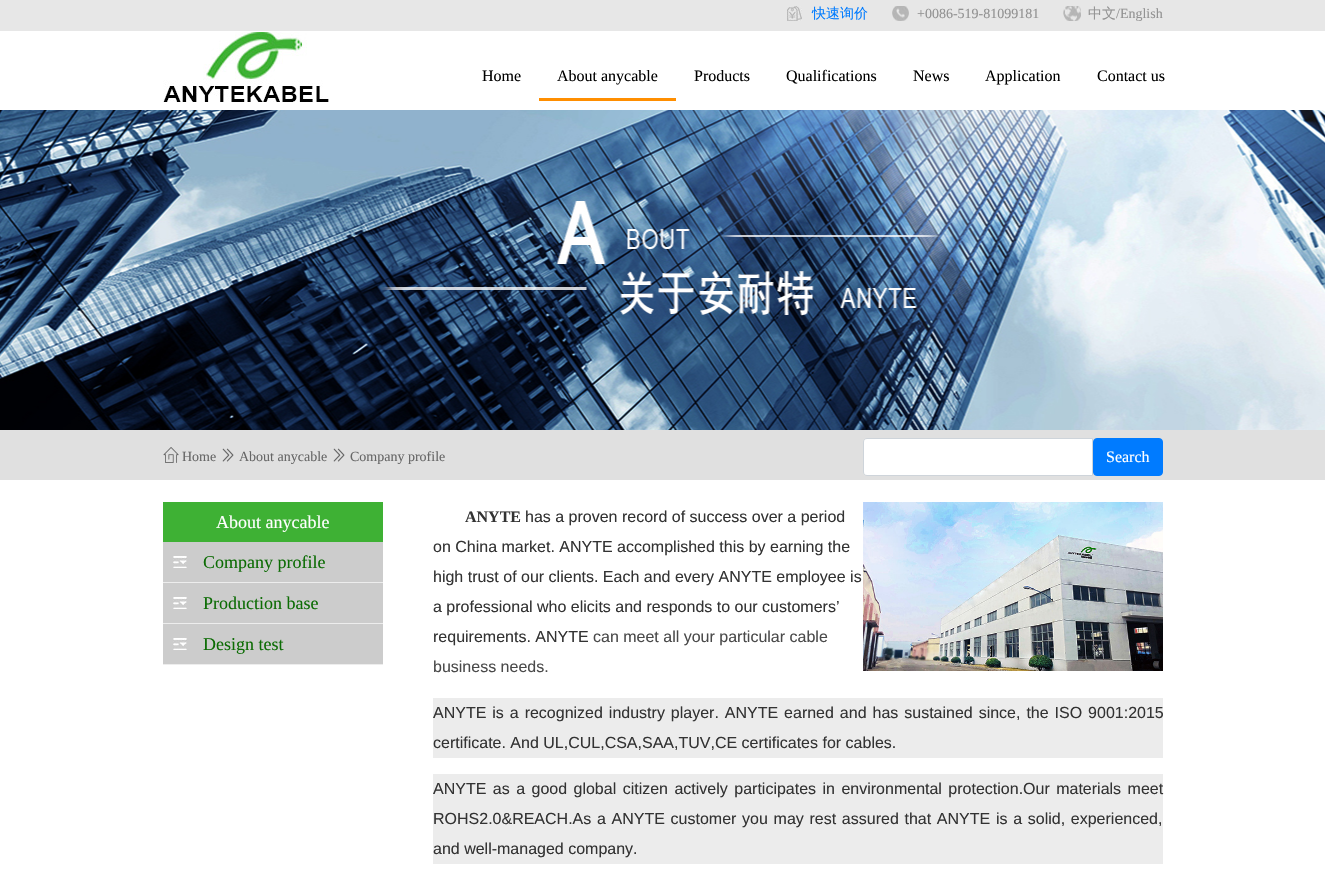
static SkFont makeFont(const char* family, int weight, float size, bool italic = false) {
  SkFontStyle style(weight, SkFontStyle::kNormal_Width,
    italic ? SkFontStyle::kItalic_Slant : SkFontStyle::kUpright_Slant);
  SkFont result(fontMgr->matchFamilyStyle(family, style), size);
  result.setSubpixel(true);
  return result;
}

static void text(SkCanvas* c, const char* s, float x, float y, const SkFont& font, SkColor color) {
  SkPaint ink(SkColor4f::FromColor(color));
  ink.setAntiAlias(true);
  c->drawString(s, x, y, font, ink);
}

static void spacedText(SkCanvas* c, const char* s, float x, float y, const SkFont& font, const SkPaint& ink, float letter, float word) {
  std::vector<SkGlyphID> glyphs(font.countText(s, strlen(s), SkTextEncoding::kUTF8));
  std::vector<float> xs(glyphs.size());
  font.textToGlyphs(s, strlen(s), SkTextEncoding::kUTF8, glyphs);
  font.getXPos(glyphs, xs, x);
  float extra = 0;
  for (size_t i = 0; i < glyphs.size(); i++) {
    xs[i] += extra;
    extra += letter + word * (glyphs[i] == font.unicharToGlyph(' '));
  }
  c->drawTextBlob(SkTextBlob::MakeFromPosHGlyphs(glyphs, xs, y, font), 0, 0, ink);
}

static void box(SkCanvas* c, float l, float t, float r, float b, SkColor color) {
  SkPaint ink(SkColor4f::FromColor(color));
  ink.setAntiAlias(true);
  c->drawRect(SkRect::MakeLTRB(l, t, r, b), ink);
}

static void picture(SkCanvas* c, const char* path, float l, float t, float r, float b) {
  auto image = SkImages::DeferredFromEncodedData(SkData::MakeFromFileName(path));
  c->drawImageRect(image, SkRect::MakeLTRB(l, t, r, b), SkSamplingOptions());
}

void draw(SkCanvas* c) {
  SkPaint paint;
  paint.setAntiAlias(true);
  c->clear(0xffffffff);
  box(c, 0, 0, 1325, 31, 0xffe7e7e7);
  picture(c, "img_01.png", 163, 32, 329, 102);
  picture(c, "img_02.png", 787, 6, 802, 21);
  SkFont face1 = makeFont("WenQuanYi Zen Hei", 500, 14);
  text(c, "快速询价", 812, 18, face1, 0xff007bff);
  picture(c, "img_03.png", 892, 6, 909, 21);
  SkFont face2 = makeFont("Liberation Serif", 400, 14);
  text(c, "+0086-519-81099181", 917, 18, face2, 0xff929292);
  picture(c, "img_04.png", 1063, 6, 1081, 21);
  text(c, "中文", 1088, 18, face1, 0xff929292);
  text(c, "/English", 1116, 18, face2, 0xff929292);
  SkFont face3 = makeFont("Liberation Serif", 400, 16);
  text(c, "Home", 482, 81, face3, 0xff000000);
  box(c, 539, 98, 676, 101, 0xffff8e00);
  text(c, "About anycable", 557, 81, face3, 0xff000000);
  text(c, "Products", 694, 81, face3, 0xff000000);
  text(c, "Qualifications", 786, 81, face3, 0xff000000);
  text(c, "News", 913, 81, face3, 0xff000000);
  text(c, "Application", 985, 81, face3, 0xff000000);
  text(c, "Contact us", 1097, 81, face3, 0xff000000);
  picture(c, "img_05.png", 0, 110, 1325, 430);
  box(c, 0, 430, 1325, 480, 0xffe0e0e0);
  picture(c, "img_06.png", 163, 447, 179, 463);
  text(c, "Home", 182, 461, face2, 0xff666666);
  picture(c, "img_07.png", 222, 448, 234, 462);
  text(c, "About anycable", 239, 461, face2, 0xff666666);
  picture(c, "img_07.png", 333, 448, 345, 462);
  text(c, "Company profile", 350, 461, face2, 0xff666666);
  paint.setColor(0xffffffff);
  c->drawPath(SkPathBuilder().moveTo(867, 438.5f).lineTo(1092.5f, 438.5f).lineTo(1092.5f, 475.5f).lineTo(867, 475.5f).cubicTo(865, 475.5f, 863.5f, 474, 863.5f, 472).lineTo(863.5f, 442).cubicTo(863.5f, 440, 865, 438.5f, 867, 438.5f).close().detach(), paint);
  paint.setStyle(SkPaint::kStroke_Style);
  paint.setStrokeWidth(1);
  paint.setColor(0xffced4da);
  c->drawPath(SkPathBuilder().moveTo(867, 438.5f).lineTo(1092.5f, 438.5f).lineTo(1092.5f, 475.5f).lineTo(867, 475.5f).cubicTo(865, 475.5f, 863.5f, 474, 863.5f, 472).lineTo(863.5f, 442).cubicTo(863.5f, 440, 865, 438.5f, 867, 438.5f).close().detach(), paint);
  paint.setStyle(SkPaint::kFill_Style);
  paint.setColor(0xff007bff);
  c->drawRoundRect(SkRect::MakeLTRB(1093.5f, 438.5f, 1162.5f, 475.5f), 3.5f, 3.5f, paint);
  paint.setStyle(SkPaint::kStroke_Style);
  c->drawRoundRect(SkRect::MakeLTRB(1093.5f, 438.5f, 1162.5f, 475.5f), 3.5f, 3.5f, paint);
  text(c, "Search", 1106, 462, face3, 0xffffffff);
  box(c, 163, 582, 383, 665, 0xffededed);
  box(c, 163, 502, 383, 542, 0xff3eb134);
  SkFont face4 = makeFont("Liberation Serif", 400, 18);
  text(c, "About anycable", 216, 528, face4, 0xffffffff);
  box(c, 163, 542, 383, 582, 0xffcccccc);
  picture(c, "img_08.png", 173, 556, 187, 568);
  text(c, "Company profile", 203, 568, face4, 0xff0c6c04);
  box(c, 163, 583, 383, 623, 0xffcccccc);
  picture(c, "img_08.png", 173, 597, 187, 609);
  text(c, "Production base", 203, 609, face4, 0xff0c6c04);
  box(c, 163, 624, 383, 664, 0xffcccccc);
  picture(c, "img_08.png", 173, 638, 187, 650);
  text(c, "Design test", 203, 650, face4, 0xff0c6c04);
  SkFont face5 = makeFont("Liberation Serif", 700, 16);
  text(c, "ANYTE", 465, 522, face5, 0xff333333);
  SkFont face6 = makeFont("Liberation Sans", 400, 16);
  text(c, "has a proven record of success over a period", 525, 522, face6, 0xff333333);
  picture(c, "img_09.png", 863, 502, 1163, 671);
  text(c, "on China market. ANYTE accomplished this by earning the", 433, 552, face6, 0xff333333);
  text(c, "high trust of our clients. Each and every ANYTE employee is", 433, 582, face6, 0xff333333);
  text(c, "a professional who elicits and responds to our customers’", 433, 612, face6, 0xff333333);
  text(c, "requirements. ANYTE", 433, 642, face6, 0xff333333);
  text(c, "can meet all your particular cable", 593, 642, face6, 0xff4a4a4a);
  text(c, "business needs.", 433, 672, face6, 0xff4a4a4a);
  box(c, 433, 698, 1163, 758, 0xffececec);
  paint.setStyle(SkPaint::kFill_Style);
  paint.setColor(0xff333333);
  spacedText(c, "ANYTE is a recognized industry player. ANYTE earned and has sustained since, the ISO 9001:2015", 433, 718, face6, paint, 0, 1.5f);
  text(c, "certificate. And UL,CUL,CSA,SAA,TUV,CE certificates for cables.", 433, 748, face6, 0xff333333);
  box(c, 433, 774, 1163, 864, 0xffececec);
  spacedText(c, "ANYTE as a good global citizen actively participates in environmental protection.Our materials meet", 433, 794, face6, paint, 0, 2);
  spacedText(c, "ROHS2.0&REACH.As a ANYTE customer you may rest assured that ANYTE is a solid, experienced,", 433, 824, face6, paint, 0, 1.25f);
  text(c, "and well-managed company.", 433, 854, face6, 0xff333333);
}
